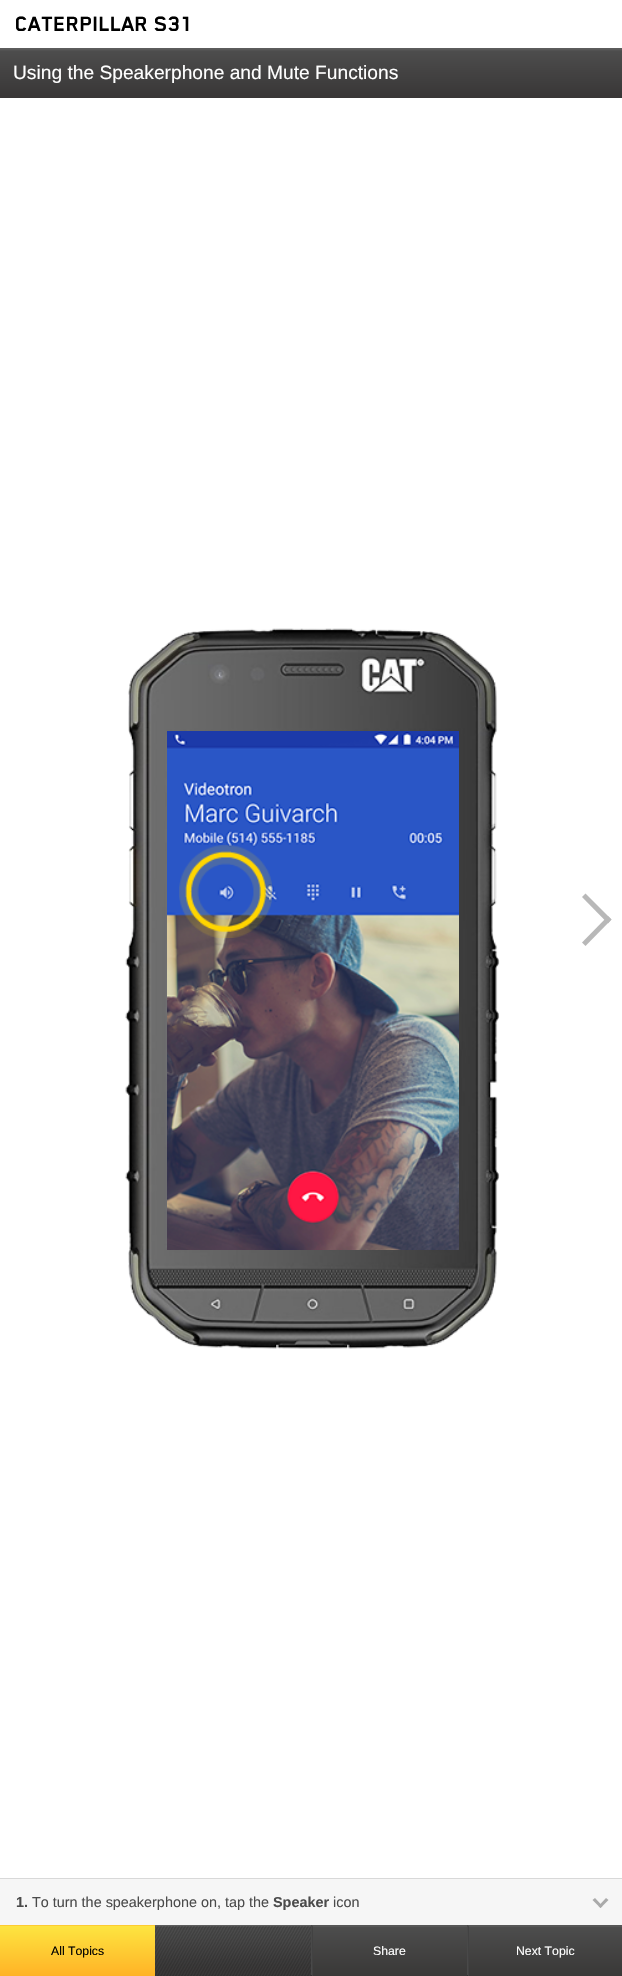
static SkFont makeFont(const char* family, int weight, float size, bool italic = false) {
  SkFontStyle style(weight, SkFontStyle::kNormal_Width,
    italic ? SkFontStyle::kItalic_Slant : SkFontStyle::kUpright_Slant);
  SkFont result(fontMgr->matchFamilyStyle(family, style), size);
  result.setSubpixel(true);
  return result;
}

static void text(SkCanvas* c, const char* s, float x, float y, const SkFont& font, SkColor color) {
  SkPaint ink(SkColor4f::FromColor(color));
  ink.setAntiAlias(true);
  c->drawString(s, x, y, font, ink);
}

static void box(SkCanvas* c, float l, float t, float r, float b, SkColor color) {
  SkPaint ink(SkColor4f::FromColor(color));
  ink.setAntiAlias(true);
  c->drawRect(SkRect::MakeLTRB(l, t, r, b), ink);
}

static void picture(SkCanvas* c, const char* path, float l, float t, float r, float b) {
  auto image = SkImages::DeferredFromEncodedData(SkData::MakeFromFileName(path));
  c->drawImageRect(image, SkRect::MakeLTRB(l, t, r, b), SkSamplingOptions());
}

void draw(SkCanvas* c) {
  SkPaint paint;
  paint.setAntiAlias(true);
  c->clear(0xffffffff);
  SkFont face1 = makeFont("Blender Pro", 700, 24);
  text(c, "CATERPILLAR S31", 15, 31, face1, 0xff000000);
  {
    const SkColor colors[] = {0xff5d5d5d, 0xff575757, 0xff4d4d4d, 0xff383636};
    const float stops[] = {0.02f, 0.04f, 0.06f, 1};
    const SkPoint ends[] = {{311, 48}, {311, 98}};
    paint.setShader(SkGradientShader::MakeLinear(ends, colors, stops, 4, SkTileMode::kClamp));
    paint.setAlpha(255);
  }
  c->drawRect(SkRect::MakeLTRB(0, 48, 622, 98), paint);
  SkFont face2 = makeFont("Liberation Sans", 400, 19.2f);
  text(c, "Using the Speakerphone and Mute Functions", 13, 79, face2, 0xffffffff);
  box(c, 0, 1879, 622, 1925, 0xfff6f6f6);
  box(c, 0, 1878, 622, 1879, 0xffd8d8d8);
  SkFont face3 = makeFont("Liberation Sans", 700, 14.4f);
  text(c, "1.", 16, 1907, face3, 0xff4b4b4b);
  SkFont face4 = makeFont("Liberation Sans", 400, 14.4f);
  text(c, "To turn the speakerphone on, tap the", 32, 1907, face4, 0xff4b4b4b);
  text(c, "Speaker", 273, 1907, face3, 0xff4b4b4b);
  text(c, "icon", 333, 1907, face4, 0xff4b4b4b);
  paint.setShader(nullptr);
  paint.setColor(0xffaaaaaa);
  c->drawPath(SkPathBuilder().moveTo(606, 1898).lineTo(608.5f, 1900).lineTo(600.5f, 1908).lineTo(598.5f, 1906).close().detach(), paint);
  c->drawPath(SkPathBuilder().moveTo(595, 1898).lineTo(602.5f, 1906).lineTo(600.5f, 1908).lineTo(592.5f, 1900).close().detach(), paint);
  picture(c, "img_01.png", 125, 628, 500, 1349);
  picture(c, "img_02.png", 167, 731, 459, 1250);
  picture(c, "img_03.png", 179, 845, 272, 938);
  paint.setColor(0xffb8b8b8);
  c->drawPath(SkPathBuilder().moveTo(608, 923.5f).lineTo(582, 897).lineTo(585.5f, 893.5f).lineTo(611.5f, 919.5f).close().detach(), paint);
  c->drawPath(SkPathBuilder().moveTo(585.5f, 946).lineTo(582, 942.5f).lineTo(608, 916).lineTo(611.5f, 919.5f).close().detach(), paint);
  picture(c, "img_04.png", 155, 1925, 469, 1976);
  {
    const SkColor colors[] = {0xfffde440, 0xffffb226};
    const float stops[] = {0, 1};
    const SkPoint ends[] = {{78, 1926}, {78, 1976}};
    paint.setShader(SkGradientShader::MakeLinear(ends, colors, stops, 2, SkTileMode::kClamp));
    paint.setAlpha(255);
  }
  c->drawRect(SkRect::MakeLTRB(0, 1926, 155, 1976), paint);
  box(c, 0, 1925, 155, 1926, 0xfffecb32);
  SkFont face5 = makeFont("Liberation Sans", 400, 12.25f);
  text(c, "All Topics", 51, 1955, face5, 0xff000000);
  box(c, 311, 1925, 312, 1975, 0xff494949);
  {
    const SkColor colors[] = {0xff4d4d4d, 0xff393837};
    const float stops[] = {0, 1};
    const SkPoint ends[] = {{390, 1927}, {390, 1976}};
    paint.setShader(SkGradientShader::MakeLinear(ends, colors, stops, 2, SkTileMode::kClamp));
    paint.setAlpha(255);
  }
  c->drawRect(SkRect::MakeLTRB(313, 1927, 467, 1976), paint);
  paint.setShader(nullptr);
  paint.setColor(0xff575757);
  c->drawPath(SkPathBuilder().moveTo(312, 1925).lineTo(467, 1925).lineTo(467, 1927).lineTo(313, 1927).close().detach(), paint);
  paint.setColor(0xff424242);
  c->drawPath(SkPathBuilder().moveTo(312, 1976).lineTo(312, 1925).lineTo(313, 1927).lineTo(313, 1976).close().detach(), paint);
  text(c, "Share", 373, 1955, face5, 0xffffffff);
  box(c, 467, 1925, 468, 1975, 0xff494949);
  {
    const SkColor colors[] = {0xff4d4d4d, 0xff393837};
    const float stops[] = {0, 1};
    const SkPoint ends[] = {{546, 1927}, {546, 1976}};
    paint.setShader(SkGradientShader::MakeLinear(ends, colors, stops, 2, SkTileMode::kClamp));
    paint.setAlpha(255);
  }
  c->drawRect(SkRect::MakeLTRB(469, 1927, 622, 1976), paint);
  paint.setShader(nullptr);
  paint.setColor(0xff575757);
  c->drawPath(SkPathBuilder().moveTo(468, 1925).lineTo(622, 1925).lineTo(622, 1927).lineTo(469, 1927).close().detach(), paint);
  paint.setColor(0xff424242);
  c->drawPath(SkPathBuilder().moveTo(468, 1976).lineTo(468, 1925).lineTo(469, 1927).lineTo(469, 1976).close().detach(), paint);
  text(c, "Next Topic", 516, 1955, face5, 0xffffffff);
}
